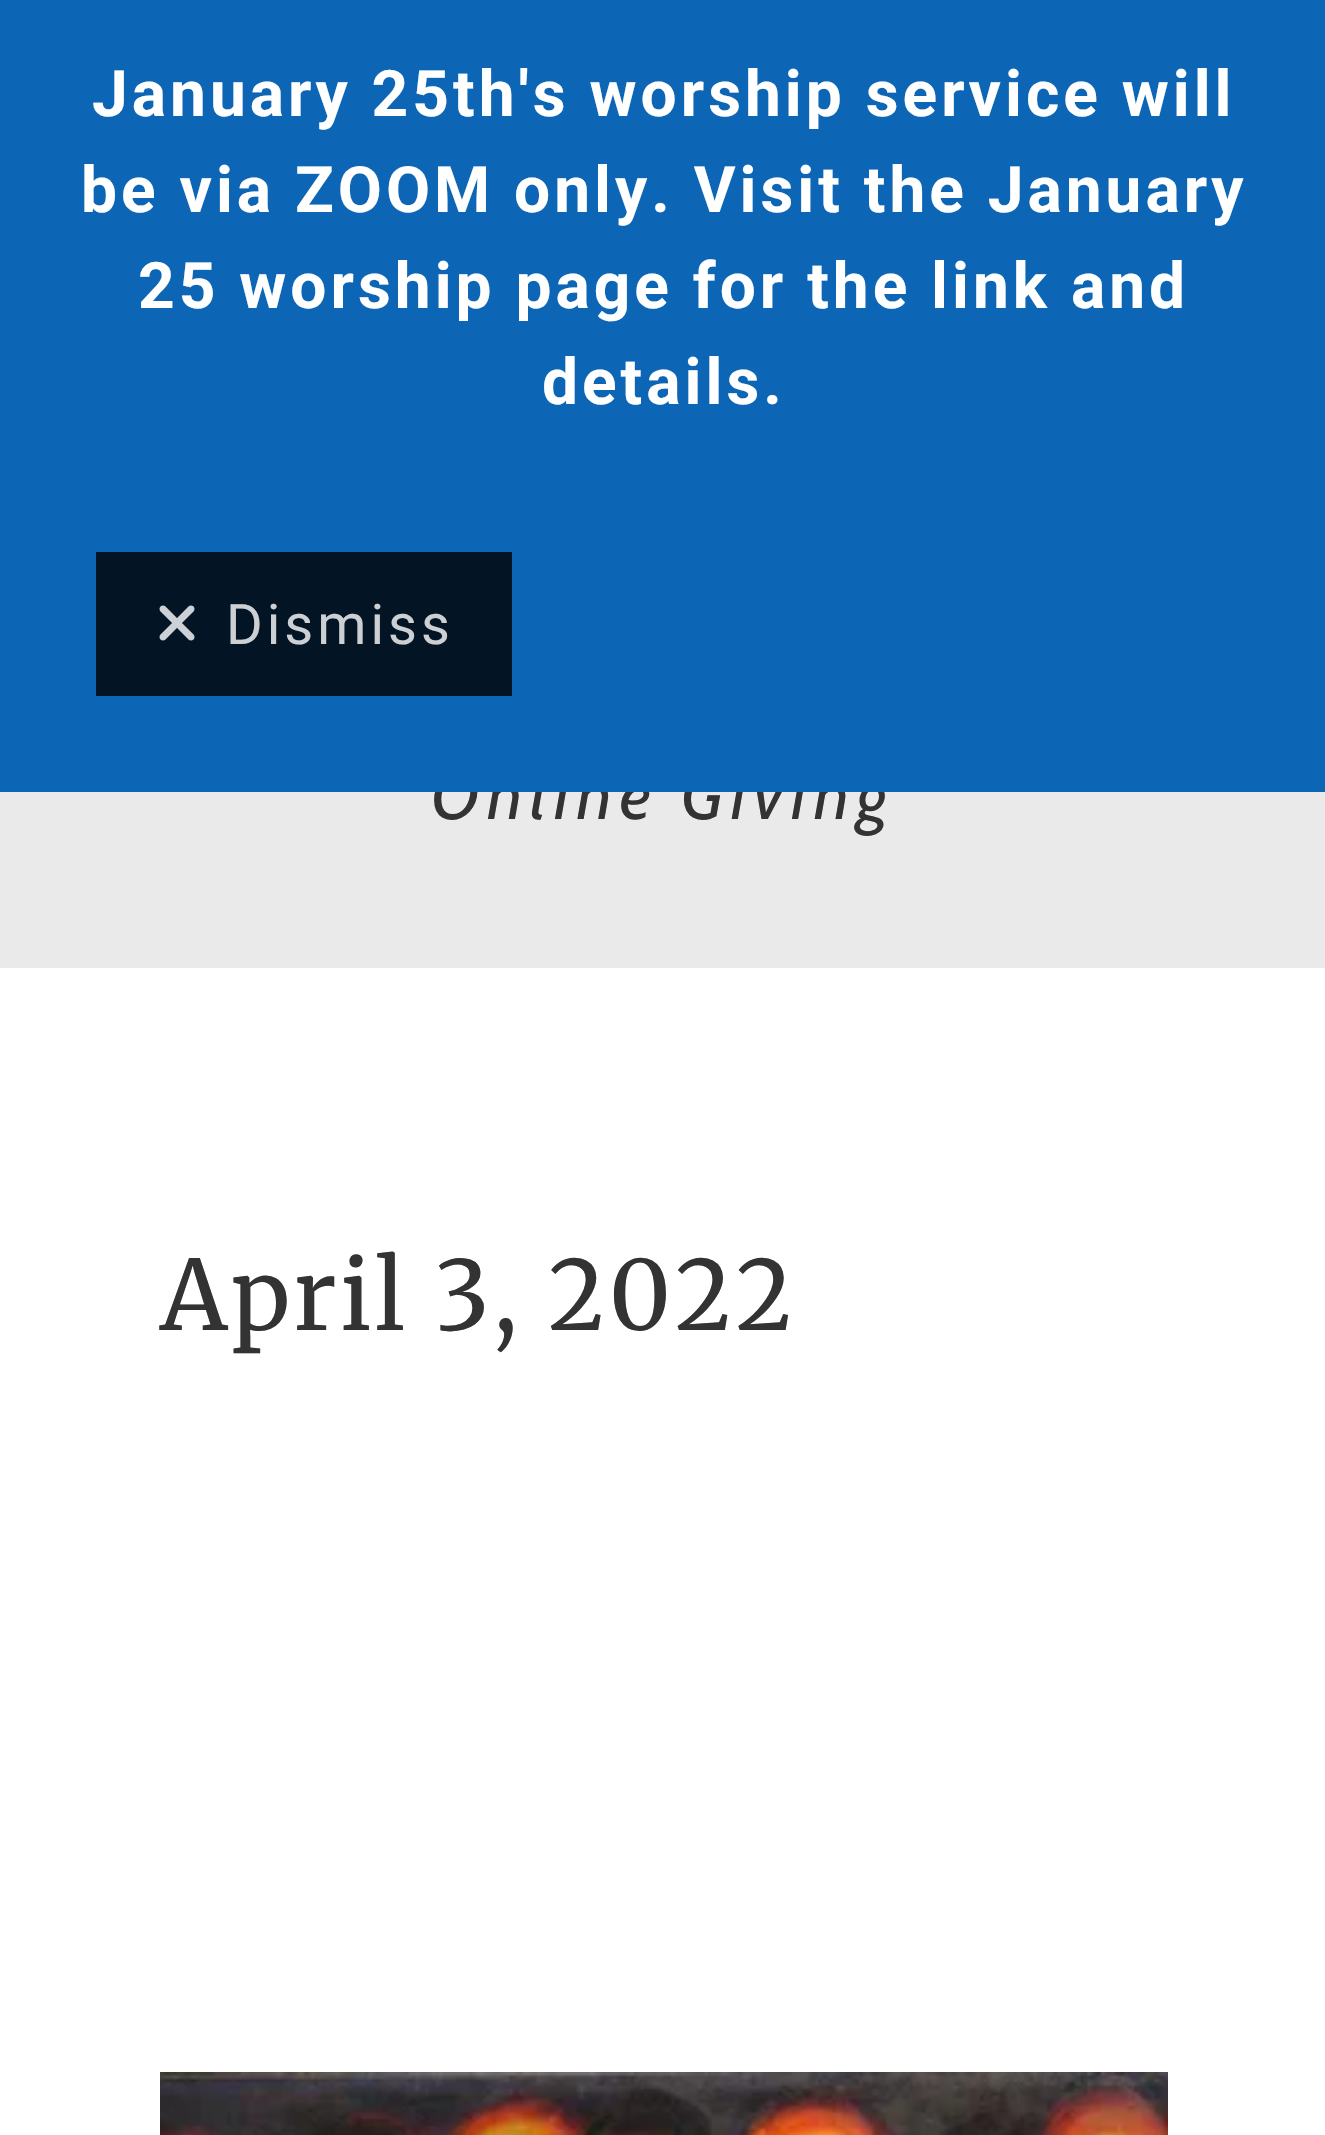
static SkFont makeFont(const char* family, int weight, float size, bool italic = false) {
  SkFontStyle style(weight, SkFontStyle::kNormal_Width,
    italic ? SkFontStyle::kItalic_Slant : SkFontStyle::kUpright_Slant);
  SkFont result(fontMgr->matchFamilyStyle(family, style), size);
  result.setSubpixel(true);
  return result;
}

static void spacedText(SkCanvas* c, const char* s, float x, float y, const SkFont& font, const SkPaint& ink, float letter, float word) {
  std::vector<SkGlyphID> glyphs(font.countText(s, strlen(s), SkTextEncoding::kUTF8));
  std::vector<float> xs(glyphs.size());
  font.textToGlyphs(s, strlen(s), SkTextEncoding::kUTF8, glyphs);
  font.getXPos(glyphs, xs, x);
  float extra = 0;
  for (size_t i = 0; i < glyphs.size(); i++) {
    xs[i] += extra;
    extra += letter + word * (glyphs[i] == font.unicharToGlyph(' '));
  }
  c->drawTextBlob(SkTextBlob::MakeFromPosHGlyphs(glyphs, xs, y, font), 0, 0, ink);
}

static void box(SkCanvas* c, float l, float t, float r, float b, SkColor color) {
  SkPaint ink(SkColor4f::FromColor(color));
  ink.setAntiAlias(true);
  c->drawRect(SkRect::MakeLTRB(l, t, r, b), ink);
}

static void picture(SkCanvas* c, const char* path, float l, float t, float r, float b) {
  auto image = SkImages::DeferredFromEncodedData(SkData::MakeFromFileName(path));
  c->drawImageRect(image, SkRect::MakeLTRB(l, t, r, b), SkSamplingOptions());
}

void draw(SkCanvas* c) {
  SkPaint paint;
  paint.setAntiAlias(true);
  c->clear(0xffffffff);
  box(c, 0, 792, 1325, 968, 0xffeaeaea);
  SkFont face1 = makeFont("Cabin", 400, 68, true);
  paint.setColor(0xff333333);
  spacedText(c, "Online Giving", 431, 819, face1, paint, 8, 0);
  box(c, 0, 0, 1325, 792, 0xff0d66b5);
  SkFont face2 = makeFont("Roboto", 700, 64);
  paint.setColor(0xffffffff);
  spacedText(c, "January 25th's worship service will", 92, 116, face2, paint, 4, 0);
  spacedText(c, "be via ZOOM only. Visit the January", 81, 212, face2, paint, 4, 0);
  spacedText(c, "25 worship page for the link and", 138, 308, face2, paint, 4, 0);
  spacedText(c, "details.", 542, 404, face2, paint, 4, 0);
  box(c, 96, 552, 512, 696, 0xff031424);
  picture(c, "img_01.png", 159, 605, 195, 641);
  SkFont face3 = makeFont("Roboto", 400, 56);
  paint.setColor(0xffcdd0d3);
  spacedText(c, "Dismiss", 226, 644, face3, paint, 4, 0);
  SkFont face4 = makeFont("Merriweather", 400, 96);
  paint.setColor(0xff333333);
  spacedText(c, "April 3, 2022", 160, 1330, face4, paint, 4, 0);
  picture(c, "img_02.png", 160, 2072, 1168, 2135);
}
